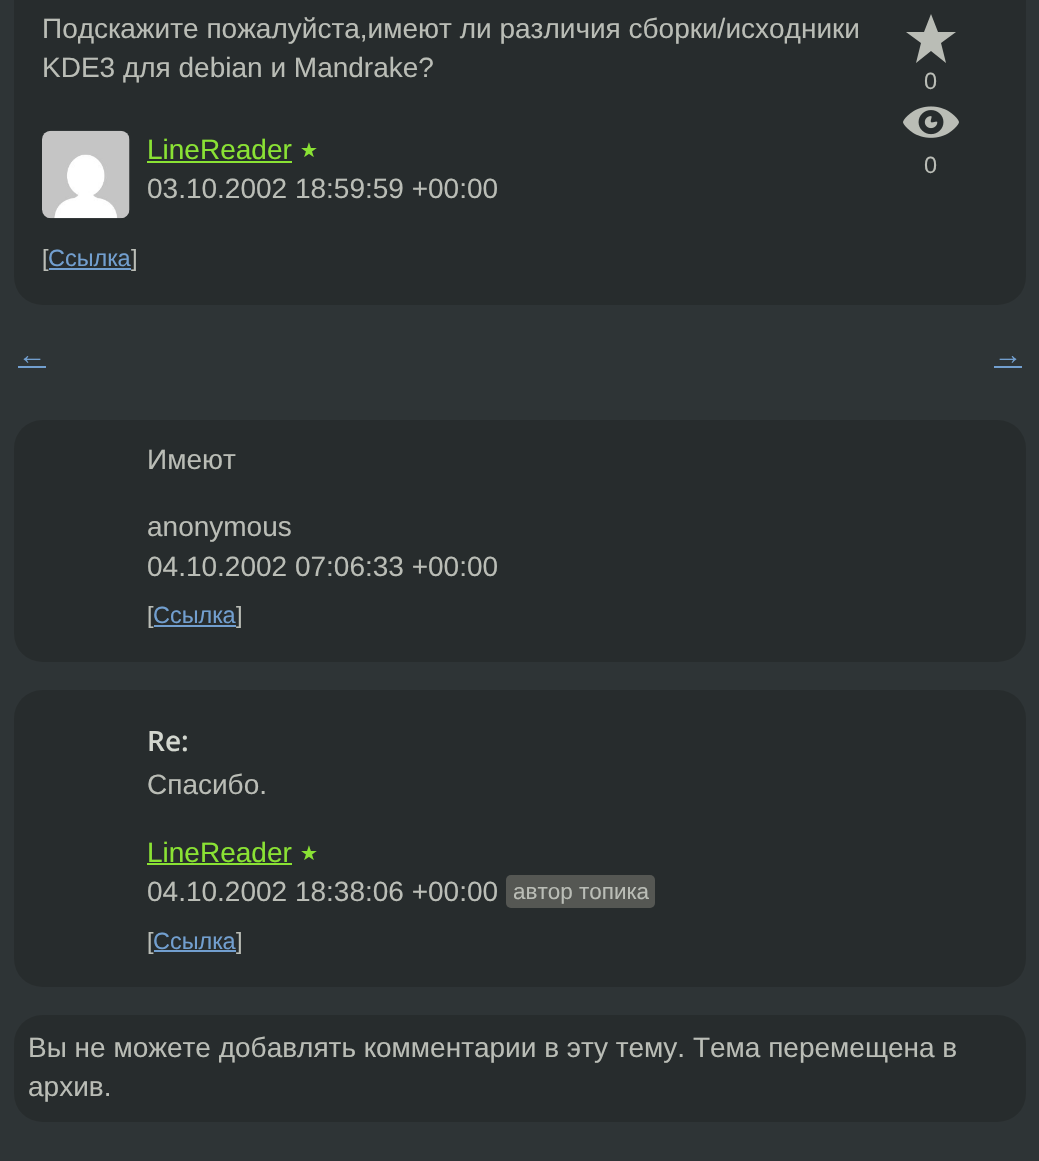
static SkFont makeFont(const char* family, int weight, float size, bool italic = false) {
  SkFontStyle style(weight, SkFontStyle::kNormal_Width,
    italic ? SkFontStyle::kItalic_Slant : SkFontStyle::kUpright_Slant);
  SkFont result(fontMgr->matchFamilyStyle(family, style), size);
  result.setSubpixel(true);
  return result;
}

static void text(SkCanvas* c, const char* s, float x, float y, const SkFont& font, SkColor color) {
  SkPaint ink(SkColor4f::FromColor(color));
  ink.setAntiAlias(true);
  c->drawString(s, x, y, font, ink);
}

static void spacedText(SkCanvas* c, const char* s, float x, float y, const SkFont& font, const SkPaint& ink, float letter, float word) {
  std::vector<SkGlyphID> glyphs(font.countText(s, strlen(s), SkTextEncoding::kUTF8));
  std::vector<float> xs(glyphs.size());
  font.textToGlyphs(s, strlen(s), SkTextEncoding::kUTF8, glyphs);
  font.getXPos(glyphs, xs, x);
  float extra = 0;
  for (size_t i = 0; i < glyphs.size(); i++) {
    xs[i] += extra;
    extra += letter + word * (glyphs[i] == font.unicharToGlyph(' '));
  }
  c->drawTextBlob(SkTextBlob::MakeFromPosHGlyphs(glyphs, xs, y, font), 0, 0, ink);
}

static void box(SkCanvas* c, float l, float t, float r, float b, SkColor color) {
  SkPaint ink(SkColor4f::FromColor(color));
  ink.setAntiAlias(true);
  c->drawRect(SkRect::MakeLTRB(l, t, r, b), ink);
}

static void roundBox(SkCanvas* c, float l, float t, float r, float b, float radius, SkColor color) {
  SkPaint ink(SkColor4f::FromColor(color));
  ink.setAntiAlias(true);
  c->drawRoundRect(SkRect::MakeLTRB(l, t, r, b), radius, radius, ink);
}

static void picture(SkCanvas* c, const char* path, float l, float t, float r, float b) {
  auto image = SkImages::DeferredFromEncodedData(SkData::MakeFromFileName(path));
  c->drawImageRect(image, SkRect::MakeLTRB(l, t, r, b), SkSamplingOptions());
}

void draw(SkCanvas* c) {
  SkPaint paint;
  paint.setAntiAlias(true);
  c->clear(0xff2e3436);
  roundBox(c, 14, -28, 1026, 305, 28, 0xff272c2d);
  SkFont face1 = makeFont("Liberation Sans", 400, 28);
  text(c, "Подскажите пожалуйста,имеют ли различия сборки/исходники", 42, 38, face1, 0xffbabdb6);
  text(c, "KDE3 для debian и Mandrake?", 42, 77, face1, 0xffbabdb6);
  picture(c, "img_01.png", 42, 130, 130, 219);
  text(c, "LineReader", 147, 159, face1, 0xff8ae234);
  box(c, 147, 161, 292, 163, 0xff8ae234);
  SkFont face2 = makeFont("DejaVu Sans", 400, 20);
  paint.setColor(0xff8ae234);
  spacedText(c, "★", 300, 157, face2, paint, 3, 0);
  text(c, "03.10.2002 18:59:59 +00:00", 147, 198, face1, 0xffbabdb6);
  paint.setColor(0xffbabdb6);
  c->drawPath(SkPathBuilder().moveTo(931, 14).lineTo(938, 32).lineTo(956, 32).lineTo(941, 43).lineTo(946, 63).lineTo(931, 51).lineTo(916, 63).lineTo(921, 43).lineTo(906, 32).lineTo(924, 32).close().detach(), paint);
  SkFont face3 = makeFont("Liberation Sans", 400, 23.5f);
  text(c, "0", 924, 89, face3, 0xffbabdb6);
  picture(c, "img_02.png", 903, 106, 959, 138);
  text(c, "0", 924, 173, face3, 0xffbabdb6);
  text(c, "[", 42, 266, face3, 0xffbabdb6);
  box(c, 49, 268, 131, 270, 0xff729fcf);
  text(c, "Ссылка", 48, 266, face3, 0xff729fcf);
  text(c, "]", 131, 266, face3, 0xffbabdb6);
  text(c, "←", 18, 364, face1, 0xff729fcf);
  box(c, 18, 366, 46, 368, 0xff729fcf);
  text(c, "→", 994, 364, face1, 0xff729fcf);
  box(c, 994, 366, 1022, 368, 0xff729fcf);
  roundBox(c, 14, 420, 1026, 662, 28, 0xff272c2d);
  text(c, "Имеют", 147, 469, face1, 0xffbabdb6);
  text(c, "anonymous", 147, 536, face1, 0xffbabdb6);
  text(c, "04.10.2002 07:06:33 +00:00", 147, 576, face1, 0xffbabdb6);
  text(c, "[", 147, 623, face3, 0xffbabdb6);
  box(c, 154, 625, 236, 627, 0xff729fcf);
  text(c, "Ссылка", 153, 623, face3, 0xff729fcf);
  text(c, "]", 236, 623, face3, 0xffbabdb6);
  roundBox(c, 14, 690, 1026, 987, 28, 0xff272c2d);
  SkFont face4 = makeFont("Open Sans", 600, 28);
  text(c, "Re:", 147, 751, face4, 0xffd3d7cf);
  text(c, "Спасибо.", 147, 794, face1, 0xffbabdb6);
  text(c, "LineReader", 147, 862, face1, 0xff8ae234);
  box(c, 147, 863, 292, 865, 0xff8ae234);
  paint.setColor(0xff8ae234);
  spacedText(c, "★", 300, 860, face2, paint, 3, 0);
  text(c, "04.10.2002 18:38:06 +00:00", 147, 901, face1, 0xffbabdb6);
  roundBox(c, 506, 875, 655, 908, 5, 0xff555753);
  SkFont face5 = makeFont("Liberation Sans", 400, 22.5f);
  text(c, "автор топика", 513, 899, face5, 0xffbabdb6);
  text(c, "[", 147, 949, face3, 0xffbabdb6);
  box(c, 154, 950, 236, 952, 0xff729fcf);
  text(c, "Ссылка", 153, 949, face3, 0xff729fcf);
  text(c, "]", 236, 949, face3, 0xffbabdb6);
  roundBox(c, 14, 1015, 1026, 1122, 28, 0xff272c2d);
  text(c, "Вы не можете добавлять комментарии в эту тему. Тема перемещена в", 28, 1057, face1, 0xffbabdb6);
  text(c, "архив.", 28, 1096, face1, 0xffbabdb6);
}
